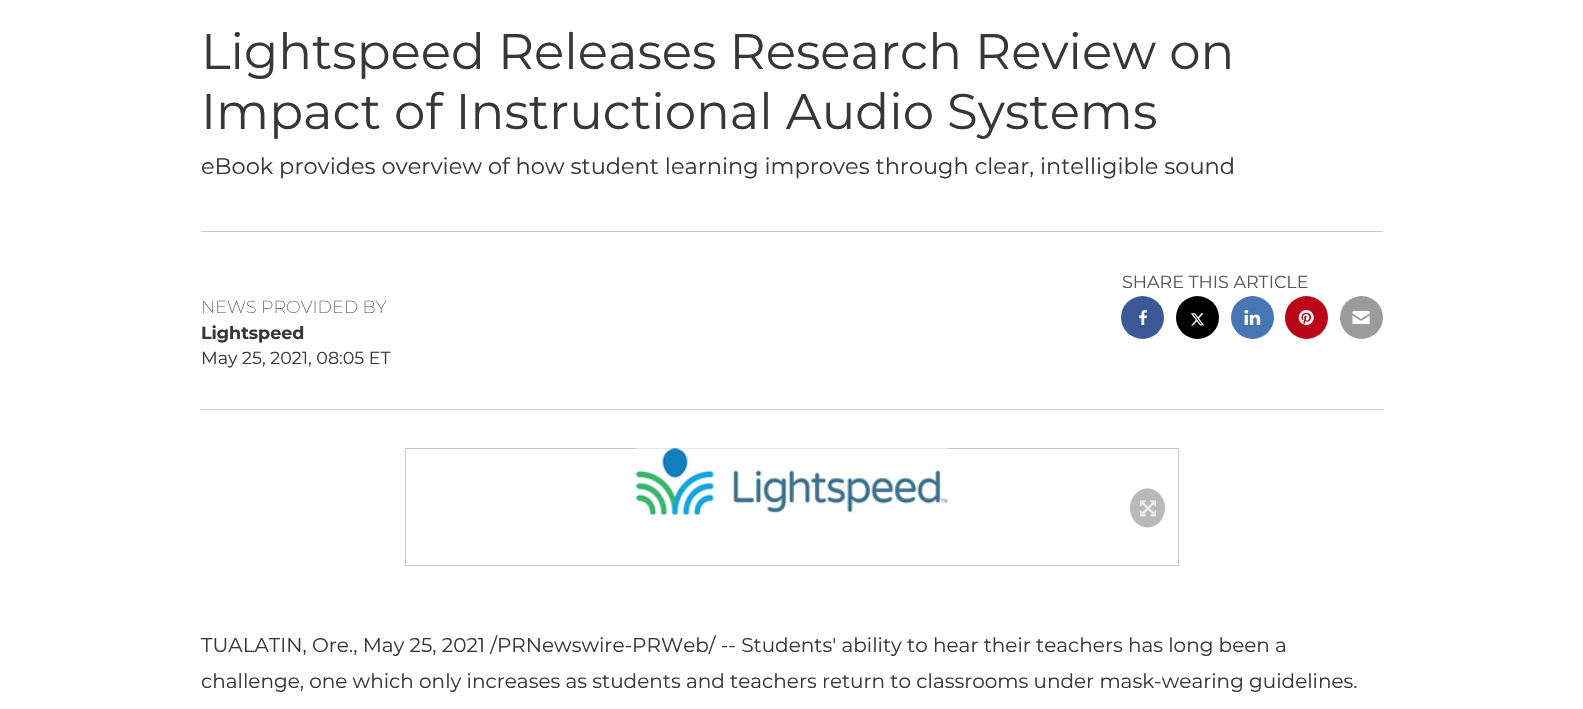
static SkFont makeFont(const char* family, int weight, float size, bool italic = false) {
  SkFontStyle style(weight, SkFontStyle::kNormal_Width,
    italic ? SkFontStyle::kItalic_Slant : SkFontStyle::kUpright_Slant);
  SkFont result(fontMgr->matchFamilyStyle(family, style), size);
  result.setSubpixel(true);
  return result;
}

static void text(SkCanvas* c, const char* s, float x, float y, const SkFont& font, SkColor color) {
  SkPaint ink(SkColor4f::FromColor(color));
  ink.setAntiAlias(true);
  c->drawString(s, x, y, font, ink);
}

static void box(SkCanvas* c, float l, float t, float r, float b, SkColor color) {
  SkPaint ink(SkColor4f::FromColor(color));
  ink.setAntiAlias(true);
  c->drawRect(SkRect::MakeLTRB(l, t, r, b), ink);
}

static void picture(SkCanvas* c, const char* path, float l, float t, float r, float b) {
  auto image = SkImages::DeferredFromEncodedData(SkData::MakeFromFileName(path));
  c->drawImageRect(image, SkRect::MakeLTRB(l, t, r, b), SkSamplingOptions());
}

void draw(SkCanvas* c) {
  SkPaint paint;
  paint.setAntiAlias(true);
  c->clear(0xffffffff);
  SkFont face1 = makeFont("Montserrat", 400, 50);
  text(c, "Lightspeed Releases Research Review on", 201, 69, face1, 0xff373737);
  text(c, "Impact of Instructional Audio Systems", 201, 129, face1, 0xff373737);
  SkFont face2 = makeFont("Montserrat", 400, 22.5f);
  text(c, "eBook provides overview of how student learning improves through clear, intelligible sound", 201, 174, face2, 0xff373737);
  box(c, 201, 231, 1383, 232, 0xffcac8c8);
  SkFont face3 = makeFont("Montserrat", 400, 17.5f);
  text(c, "SHARE THIS ARTICLE", 1122, 288, face3, 0xff575757);
  paint.setColor(0xff3b5999);
  c->drawCircle(1142.5f, 317.5f, 21.5f, paint);
  picture(c, "img_01.png", 1139, 310, 1147, 325);
  paint.setColor(0xff000000);
  c->drawCircle(1197.5f, 317.5f, 21.5f, paint);
  picture(c, "img_02.png", 1190, 313, 1205, 326);
  paint.setColor(0xff4875b4);
  c->drawCircle(1252.5f, 317.5f, 21.5f, paint);
  picture(c, "img_03.png", 1244, 310, 1261, 325);
  paint.setColor(0xffbb061a);
  c->drawCircle(1306.5f, 317.5f, 21.5f, paint);
  picture(c, "img_04.png", 1298, 310, 1314, 325);
  paint.setColor(0xff9b9b9b);
  c->drawCircle(1361.5f, 317.5f, 21.5f, paint);
  picture(c, "img_05.png", 1352, 311, 1370, 324);
  SkFont face4 = makeFont("Montserrat", 200, 17.5f);
  text(c, "NEWS PROVIDED BY", 201, 313, face4, 0xff575757);
  SkFont face5 = makeFont("Montserrat", 700, 17.5f);
  text(c, "Lightspeed", 201, 339, face5, 0xff373737);
  text(c, "May 25, 2021, 08:05 ET", 201, 364, face3, 0xff373737);
  box(c, 201, 409, 1383, 410, 0xffcac8c8);
  paint.setStyle(SkPaint::kStroke_Style);
  paint.setStrokeWidth(1);
  paint.setColor(0xffcac8c8);
  c->drawRect(SkRect::MakeLTRB(405.5f, 448.5f, 1178.5f, 565.5f), paint);
  picture(c, "img_06.png", 636, 448, 948, 515);
  paint.setStyle(SkPaint::kFill_Style);
  paint.setColor(0xffb9b9b9);
  c->drawOval(SkRect::MakeLTRB(1130, 488.5f, 1165, 527.5f), paint);
  picture(c, "img_07.png", 1140, 500, 1156, 517);
  SkFont face6 = makeFont("Montserrat", 400, 20);
  text(c, "TUALATIN, Ore., May 25, 2021 /PRNewswire-PRWeb/ -- Students' ability to hear their teachers has long been a", 201, 652, face6, 0xff373737);
  text(c, "challenge, one which only increases as students and teachers return to classrooms under mask-wearing guidelines.", 201, 688, face6, 0xff373737);
}
